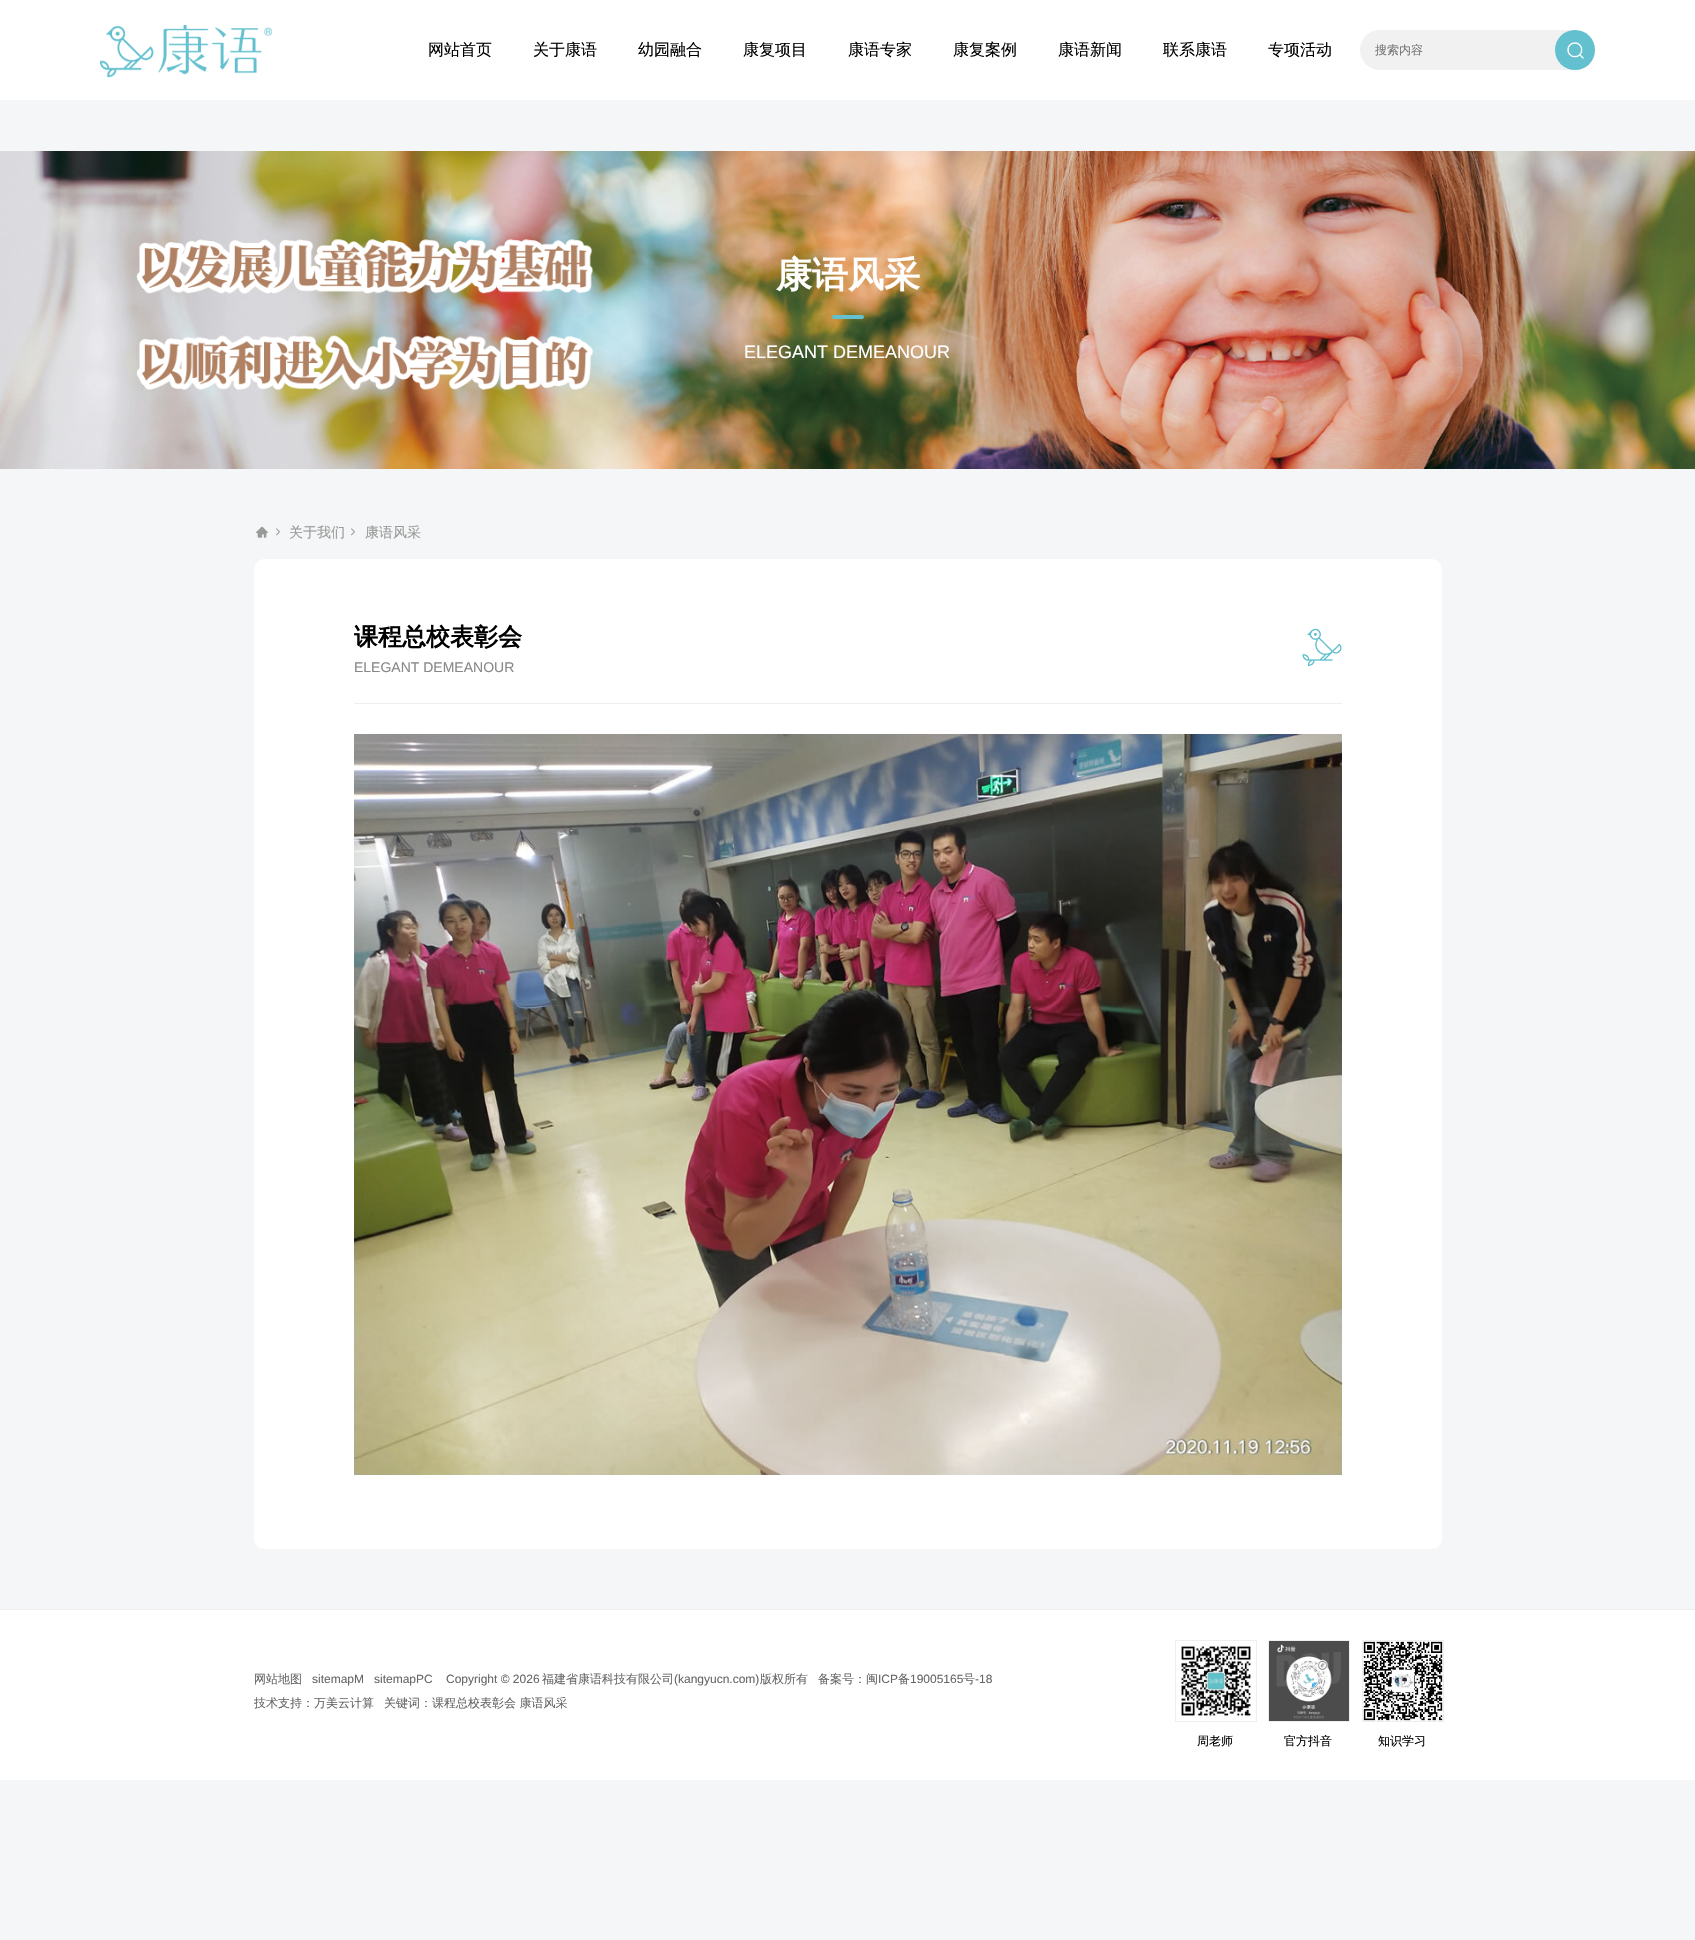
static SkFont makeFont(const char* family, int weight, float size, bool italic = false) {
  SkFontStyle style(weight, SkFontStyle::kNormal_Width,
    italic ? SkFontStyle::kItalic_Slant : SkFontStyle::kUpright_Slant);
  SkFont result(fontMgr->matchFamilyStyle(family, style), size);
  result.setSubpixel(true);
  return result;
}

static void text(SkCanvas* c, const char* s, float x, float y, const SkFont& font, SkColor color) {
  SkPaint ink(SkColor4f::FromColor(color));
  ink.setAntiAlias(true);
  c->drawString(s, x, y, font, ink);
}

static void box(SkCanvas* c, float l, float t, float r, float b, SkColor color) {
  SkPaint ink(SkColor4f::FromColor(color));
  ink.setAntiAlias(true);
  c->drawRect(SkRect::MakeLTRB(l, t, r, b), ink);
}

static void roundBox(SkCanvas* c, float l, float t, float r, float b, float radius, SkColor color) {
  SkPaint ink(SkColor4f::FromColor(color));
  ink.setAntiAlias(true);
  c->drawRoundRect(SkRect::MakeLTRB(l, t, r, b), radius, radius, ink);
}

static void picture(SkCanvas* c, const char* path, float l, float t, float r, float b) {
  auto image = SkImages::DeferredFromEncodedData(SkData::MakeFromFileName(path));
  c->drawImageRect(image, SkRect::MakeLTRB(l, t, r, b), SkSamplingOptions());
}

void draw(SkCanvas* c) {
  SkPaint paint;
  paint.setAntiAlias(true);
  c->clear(0xfff5f6f7);
  box(c, 0, 0, 1695, 100, 0xffffffff);
  picture(c, "img_01.png", 100, 25, 272, 78);
  SkFont face1 = makeFont("WenQuanYi Zen Hei", 500, 16);
  text(c, "网站首页", 428, 55, face1, 0xff000000);
  text(c, "关于康语", 533, 55, face1, 0xff000000);
  text(c, "幼园融合", 638, 55, face1, 0xff000000);
  text(c, "康复项目", 743, 55, face1, 0xff000000);
  text(c, "康语专家", 848, 55, face1, 0xff000000);
  text(c, "康复案例", 953, 55, face1, 0xff000000);
  text(c, "康语新闻", 1058, 55, face1, 0xff000000);
  text(c, "联系康语", 1163, 55, face1, 0xff000000);
  text(c, "专项活动", 1268, 55, face1, 0xff000000);
  roundBox(c, 1360, 30, 1595, 70, 20, 0xfff1f1f1);
  SkFont face2 = makeFont("WenQuanYi Zen Hei", 500, 12);
  text(c, "搜索内容", 1375, 54, face2, 0xff757575);
  paint.setColor(0xff63c0cf);
  c->drawCircle(1575, 50, 20, paint);
  picture(c, "img_02.png", 1567, 42, 1584, 59);
  picture(c, "img_03.png", 0, 151, 1695, 469);
  SkFont face3 = makeFont("WenQuanYi Zen Hei", 700, 36);
  text(c, "康语风采", 776, 287, face3, 0xffffffff);
  roundBox(c, 832, 315, 864, 319, 2, 0xff63c0cf);
  SkFont face4 = makeFont("Liberation Sans", 400, 18);
  text(c, "ELEGANT DEMEANOUR", 744, 358, face4, 0xffffffff);
  picture(c, "img_04.png", 256, 526, 268, 538);
  picture(c, "img_05.png", 276, 528, 280, 536);
  SkFont face5 = makeFont("WenQuanYi Zen Hei", 500, 14);
  text(c, "关于我们", 289, 537, face5, 0xff999999);
  picture(c, "img_05.png", 351, 528, 355, 536);
  text(c, "康语风采", 365, 537, face5, 0xff999999);
  roundBox(c, 254, 559, 1442, 1549, 10, 0xffffffff);
  box(c, 354, 703, 1342, 704, 0xffeeeeee);
  SkFont face6 = makeFont("WenQuanYi Zen Hei", 700, 24);
  text(c, "课程总校表彰会", 354, 645, face6, 0xff000000);
  SkFont face7 = makeFont("Liberation Sans", 400, 14);
  text(c, "ELEGANT DEMEANOUR", 354, 672, face7, 0xff888888);
  picture(c, "img_06.png", 1302, 628, 1342, 666);
  picture(c, "img_07.png", 354, 734, 1342, 1475);
  box(c, 0, 1610, 1695, 1780, 0xffffffff);
  box(c, 0, 1609, 1695, 1610, 0xffeeeeee);
  text(c, "网站地图", 254, 1683, face2, 0xff666666);
  SkFont face8 = makeFont("Liberation Sans", 400, 12);
  text(c, "sitemapM", 312, 1683, face8, 0xff666666);
  text(c, "sitemapPC", 374, 1683, face8, 0xff666666);
  text(c, "Copyright © 2026", 446, 1683, face8, 0xff666666);
  text(c, "福建省康语科技有限公司", 542, 1683, face2, 0xff666666);
  text(c, "(kangyucn.com)", 674, 1683, face8, 0xff666666);
  text(c, "版权所有", 760, 1683, face2, 0xff666666);
  text(c, "备案号：闽", 818, 1683, face2, 0xff666666);
  text(c, "ICP", 878, 1683, face8, 0xff666666);
  text(c, "备", 898, 1683, face2, 0xff666666);
  text(c, "19005165", 910, 1683, face8, 0xff666666);
  text(c, "号", 963, 1683, face2, 0xff666666);
  text(c, "-18", 975, 1683, face8, 0xff666666);
  text(c, "技术支持：万美云计算", 254, 1707, face2, 0xff666666);
  text(c, "关键词：课程总校表彰会 康语风采", 384, 1707, face2, 0xff666666);
  paint.setStyle(SkPaint::kStroke_Style);
  paint.setStrokeWidth(1);
  paint.setColor(0xffeeeeee);
  c->drawRect(SkRect::MakeLTRB(1175.5f, 1640.5f, 1256.5f, 1721.5f), paint);
  picture(c, "img_08.png", 1181, 1645, 1251, 1717);
  text(c, "周老师", 1197, 1745, face2, 0xff000000);
  c->drawRect(SkRect::MakeLTRB(1268.5f, 1640.5f, 1349.5f, 1721.5f), paint);
  picture(c, "img_09.png", 1269, 1641, 1349, 1721);
  text(c, "官方抖音", 1284, 1745, face2, 0xff000000);
  c->drawRect(SkRect::MakeLTRB(1362.5f, 1640.5f, 1443.5f, 1721.5f), paint);
  picture(c, "img_10.png", 1363, 1641, 1443, 1721);
  text(c, "知识学习", 1378, 1745, face2, 0xff000000);
}
